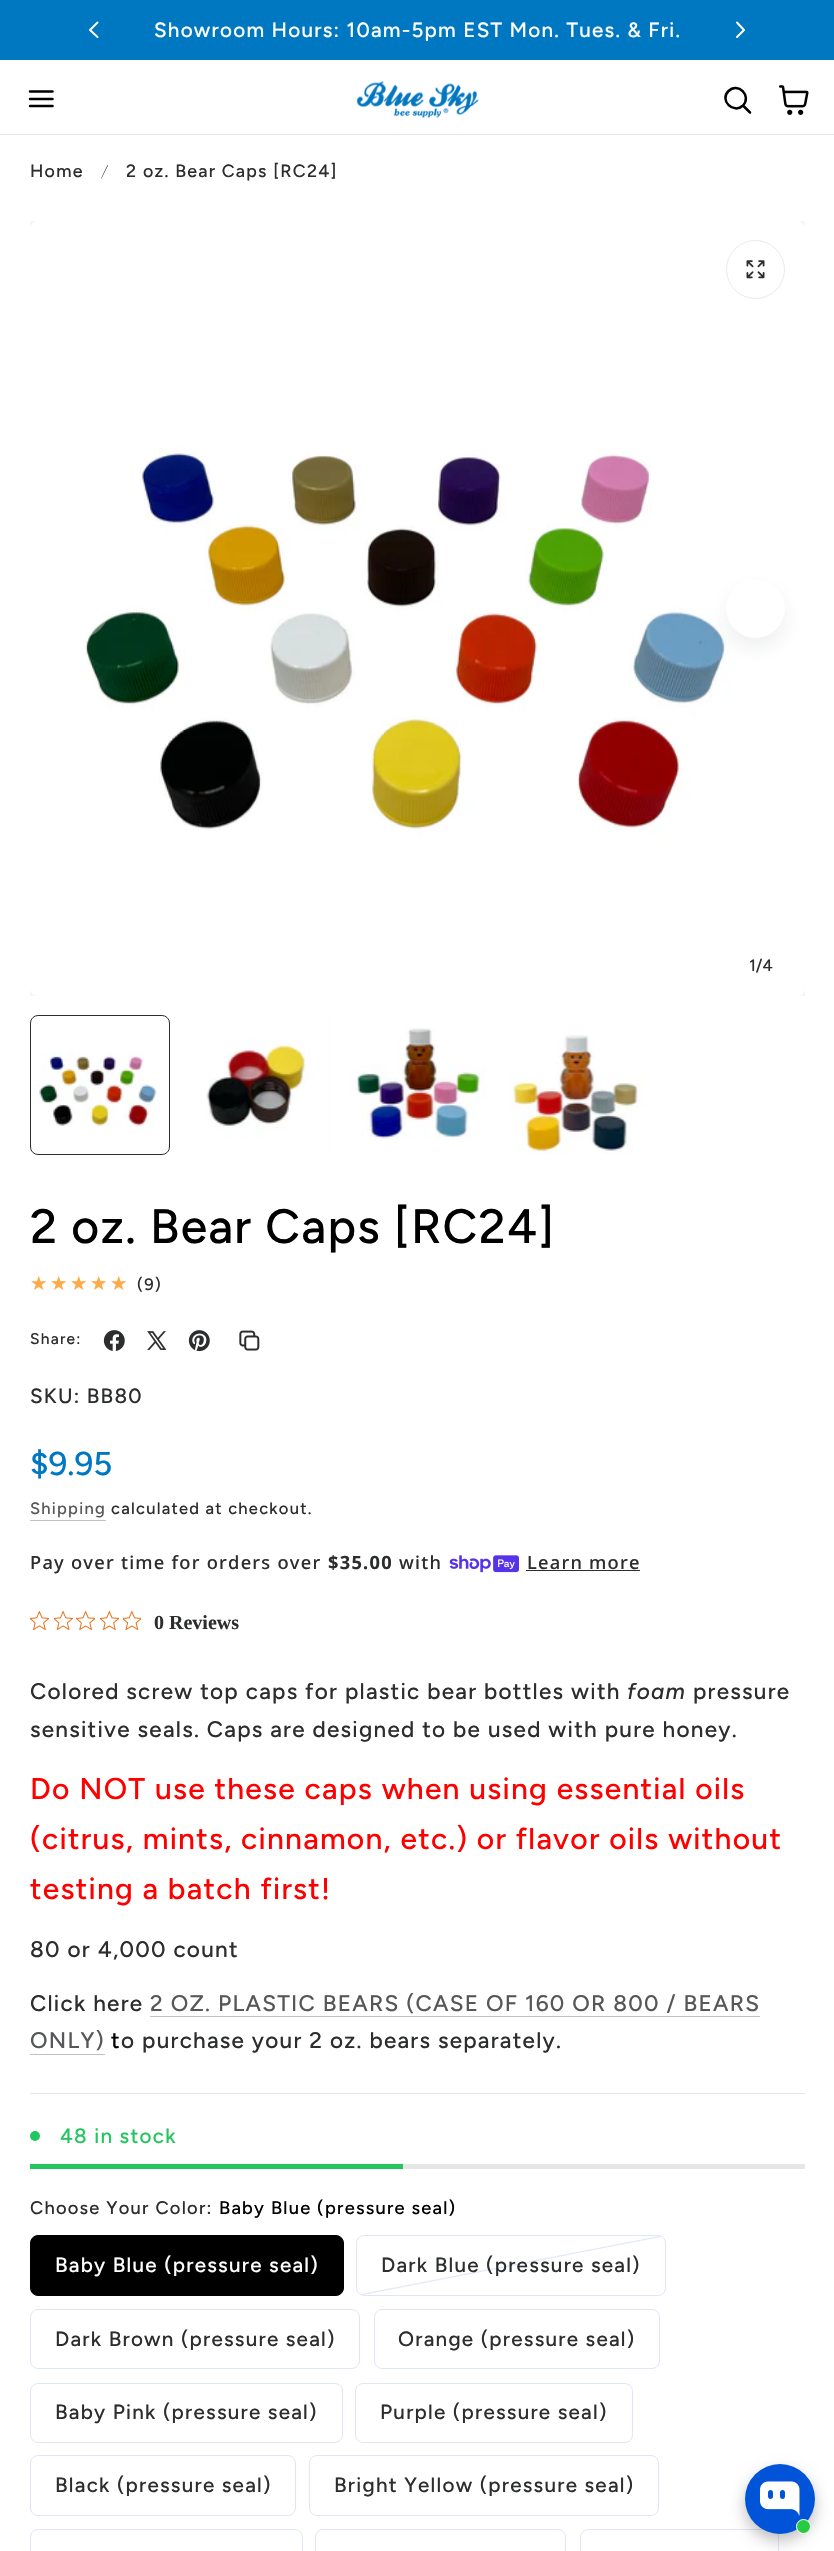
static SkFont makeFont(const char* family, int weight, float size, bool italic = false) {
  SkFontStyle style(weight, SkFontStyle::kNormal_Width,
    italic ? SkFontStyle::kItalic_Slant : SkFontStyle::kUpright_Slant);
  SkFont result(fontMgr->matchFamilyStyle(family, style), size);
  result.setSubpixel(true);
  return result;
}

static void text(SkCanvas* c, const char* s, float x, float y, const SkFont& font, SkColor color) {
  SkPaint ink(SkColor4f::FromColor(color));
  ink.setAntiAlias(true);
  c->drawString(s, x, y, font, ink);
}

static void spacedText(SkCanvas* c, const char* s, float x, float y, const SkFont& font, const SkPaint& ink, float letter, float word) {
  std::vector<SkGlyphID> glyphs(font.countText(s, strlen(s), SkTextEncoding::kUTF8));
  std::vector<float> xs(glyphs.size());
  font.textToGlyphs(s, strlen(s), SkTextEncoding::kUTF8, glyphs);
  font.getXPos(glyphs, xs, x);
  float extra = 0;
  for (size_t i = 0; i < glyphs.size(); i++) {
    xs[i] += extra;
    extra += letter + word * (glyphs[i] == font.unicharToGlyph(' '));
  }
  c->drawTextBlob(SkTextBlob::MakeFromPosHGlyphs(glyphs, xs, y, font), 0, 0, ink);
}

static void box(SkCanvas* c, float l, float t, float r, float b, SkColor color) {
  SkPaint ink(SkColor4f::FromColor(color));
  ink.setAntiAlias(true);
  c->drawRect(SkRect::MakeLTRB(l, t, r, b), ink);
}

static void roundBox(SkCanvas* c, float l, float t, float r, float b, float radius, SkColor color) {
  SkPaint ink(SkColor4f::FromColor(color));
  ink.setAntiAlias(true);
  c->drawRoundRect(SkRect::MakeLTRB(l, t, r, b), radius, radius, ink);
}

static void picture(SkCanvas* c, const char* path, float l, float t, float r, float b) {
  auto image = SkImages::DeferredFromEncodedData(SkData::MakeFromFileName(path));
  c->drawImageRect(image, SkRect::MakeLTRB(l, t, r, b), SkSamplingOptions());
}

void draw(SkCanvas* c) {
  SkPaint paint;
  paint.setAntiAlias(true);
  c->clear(0xffffffff);
  box(c, 0, 0, 834, 60, 0xff0077c1);
  paint.setStyle(SkPaint::kStroke_Style);
  paint.setStrokeWidth(2);
  paint.setStrokeCap(SkPaint::kRound_Cap);
  paint.setStrokeJoin(SkPaint::kRound_Join);
  paint.setColor(0xffffffff);
  c->drawPath(SkPathBuilder().moveTo(97.5f, 22.5f).lineTo(90, 30).lineTo(97.5f, 37).detach(), paint);
  c->drawPath(SkPathBuilder().moveTo(737, 22.5f).lineTo(744, 30).lineTo(737, 37).detach(), paint);
  SkFont face1 = makeFont("Figtree", 500, 20.6f);
  paint.setStyle(SkPaint::kFill_Style);
  spacedText(c, "Showroom Hours: 10am-5pm EST Mon. Tues. & Fri.", 154, 37, face1, paint, 1.25f, 0);
  box(c, 0, 134, 834, 135, 0xffe6e6e6);
  paint.setStyle(SkPaint::kStroke_Style);
  paint.setStrokeWidth(2.5f);
  paint.setColor(0xff000000);
  c->drawPath(SkPathBuilder().moveTo(30, 91.5f).lineTo(52.5f, 91.5f).moveTo(30, 99).lineTo(52.5f, 99).moveTo(30, 106).lineTo(52.5f, 106).detach(), paint);
  picture(c, "img_01.png", 356, 81, 479, 118);
  c->drawPath(SkPathBuilder().moveTo(750, 112.5f).lineTo(743, 105.5f).moveTo(743, 105.5f).cubicTo(752, 96, 738, 81.5f, 728.5f, 91).cubicTo(719, 100.5f, 733.5f, 114.5f, 743, 105.5f).close().detach(), paint);
  picture(c, "img_02.png", 779, 85, 809, 115);
  SkFont face2 = makeFont("Figtree", 500, 17.8f);
  paint.setStyle(SkPaint::kFill_Style);
  paint.setColor(0xff2c2d2e);
  spacedText(c, "Home", 30, 177, face2, paint, 1.25f, 0);
  c->drawPath(SkPathBuilder().moveTo(101, 178.5f).lineTo(107.5f, 165).lineTo(108, 165.5f).lineTo(101.5f, 178.5f).close().detach(), paint);
  spacedText(c, "2 oz. Bear Caps [RC24]", 126, 177, face2, paint, 1.25f, 0);
  box(c, 30, 221, 805, 996, 0xfff5f5f5);
  picture(c, "img_03.png", 30, 221, 805, 996);
  paint.setStyle(SkPaint::kStroke_Style);
  paint.setStrokeWidth(1);
  paint.setStrokeCap(SkPaint::kButt_Cap);
  paint.setStrokeJoin(SkPaint::kMiter_Join);
  paint.setColor(0xffeaeaea);
  c->drawCircle(755.5f, 269.5f, 29, paint);
  picture(c, "img_04.png", 746, 260, 765, 279);
  paint.setStyle(SkPaint::kFill_Style);
  paint.setColor(0x4dffffff);
  c->drawCircle(79.5f, 608.5f, 29.5f, paint);
  paint.setColor(0x142c2d2e);
  paint.setMaskFilter(SkMaskFilter::MakeBlur(kNormal_SkBlurStyle, 10));
  c->drawRoundRect(SkRect::MakeLTRB(726, 589, 785, 648), 29.5f, 29.5f, paint);
  paint.setMaskFilter(nullptr);
  paint.setColor(0xffffffff);
  c->drawCircle(755.5f, 608.5f, 29.5f, paint);
  SkFont face3 = makeFont("Figtree", 500, 16.5f);
  text(c, "1/4", 749, 971, face3, 0xff2c2d2e);
  picture(c, "img_05.png", 30, 1015, 170, 1155);
  paint.setStyle(SkPaint::kStroke_Style);
  paint.setStrokeWidth(4);
  c->drawRoundRect(SkRect::MakeLTRB(32, 1017, 168, 1153), 6, 6, paint);
  paint.setStrokeWidth(1);
  paint.setColor(0xff2c2d2e);
  c->drawRoundRect(SkRect::MakeLTRB(30.5f, 1015.5f, 169.5f, 1154.5f), 7.5f, 7.5f, paint);
  roundBox(c, 189, 1015, 329, 1155, 8, 0xfff4f5f5);
  picture(c, "img_06.png", 189, 1015, 329, 1155);
  picture(c, "img_07.png", 349, 1015, 488, 1155);
  picture(c, "img_08.png", 508, 1015, 646, 1155);
  SkFont face4 = makeFont("Figtree", 500, 48.1f);
  paint.setStyle(SkPaint::kFill_Style);
  paint.setColor(0xff000000);
  spacedText(c, "2 oz. Bear Caps [RC24]", 30, 1243, face4, paint, 1.25f, 0);
  SkFont face5 = makeFont("DejaVu Sans", 400, 19.5f);
  {
    const SkColor colors[] = {0xffffaa47, 0xffdfe0e0};
    const float stops[] = {1, 1};
    const SkPoint ends[] = {{30, 1283}, {131, 1283}};
    paint.setShader(SkGradientShader::MakeLinear(ends, colors, stops, 2, SkTileMode::kClamp));
    paint.setAlpha(255);
  }
  spacedText(c, "★★★★★", 30, 1290, face5, paint, 2.5f, 0);
  paint.setShader(nullptr);
  paint.setColor(0xff2c2d2e);
  spacedText(c, "(9)", 137, 1290, face3, paint, 1.25f, 0);
  SkFont face6 = makeFont("Figtree", 500, 15.5f);
  spacedText(c, "Share:", 30, 1344, face6, paint, 1.25f, 0);
  picture(c, "img_09.png", 103, 1330, 125, 1351);
  picture(c, "img_10.png", 147, 1331, 167, 1350);
  picture(c, "img_11.png", 188, 1330, 210, 1352);
  picture(c, "img_12.png", 239, 1330, 260, 1351);
  spacedText(c, "SKU: BB80", 30, 1403, face1, paint, 1.25f, 0);
  SkFont face7 = makeFont("Figtree", 500, 33);
  text(c, "$9.95", 30, 1475, face7, 0xff0077c1);
  paint.setColor(0xff565758);
  spacedText(c, "Shipping", 30, 1514, face3, paint, 1.25f, 0);
  box(c, 30, 1520, 106, 1521, 0xffc0c0c0);
  paint.setColor(0xff2c2d2e);
  spacedText(c, "calculated at checkout.", 111, 1514, face3, paint, 1.25f, 0);
  SkFont face8 = makeFont("Noto Sans", 500, 18.25f);
  spacedText(c, "Pay over time for orders over", 30, 1569, face8, paint, 1.25f, 0);
  SkFont face9 = makeFont("Noto Sans", 700, 18.25f);
  spacedText(c, "$35.00", 328, 1569, face9, paint, 1.25f, 0);
  spacedText(c, "with", 399, 1569, face8, paint, 1.25f, 0);
  picture(c, "img_13.png", 449, 1555, 519, 1573);
  spacedText(c, "Learn more", 527, 1569, face8, paint, 1.25f, 0);
  box(c, 526, 1570, 640, 1571, 0xff2c2d2e);
  picture(c, "img_14.png", 30, 1611, 49, 1630);
  picture(c, "img_15.png", 54, 1611, 73, 1630);
  picture(c, "img_16.png", 76, 1611, 95, 1630);
  picture(c, "img_14.png", 100, 1611, 119, 1630);
  picture(c, "img_17.png", 123, 1611, 141, 1630);
  SkFont face10 = makeFont("Liberation Serif", 700, 20);
  text(c, "0 Reviews", 154, 1629, face10, 0xff2c2d2e);
  SkFont face11 = makeFont("Figtree", 500, 22.5f);
  spacedText(c, "Colored screw top caps for plastic bear bottles with", 30, 1699, face11, paint, 1.25f, 0);
  SkFont face12 = makeFont("Figtree", 500, 22.5f, true);
  spacedText(c, "foam", 627, 1699, face12, paint, 1.25f, 0);
  spacedText(c, "pressure", 693, 1699, face11, paint, 1.25f, 0);
  spacedText(c, "sensitive seals. Caps are designed to be used with pure honey.", 30, 1737, face11, paint, 1.25f, 0);
  SkFont face13 = makeFont("Figtree", 500, 30);
  paint.setColor(0xffff0000);
  spacedText(c, "Do NOT use these caps when using essential oils", 30, 1799, face13, paint, 1.25f, 0);
  spacedText(c, "(citrus, mints, cinnamon, etc.) or flavor oils without", 30, 1849, face13, paint, 1.25f, 0);
  spacedText(c, "testing a batch first!", 30, 1899, face13, paint, 1.25f, 0);
  paint.setColor(0xff2c2d2e);
  spacedText(c, "80 or 4,000 count", 30, 1957, face11, paint, 1.25f, 0);
  spacedText(c, "Click here", 30, 2011, face11, paint, 1.25f, 0);
  paint.setColor(0xff565758);
  spacedText(c, "2 OZ. PLASTIC BEARS (CASE OF 160 OR 800 / BEARS", 150, 2011, face11, paint, 1.25f, 0);
  box(c, 150, 2016, 760, 2017, 0xffc0c0c0);
  spacedText(c, "ONLY)", 30, 2048, face11, paint, 1.25f, 0);
  box(c, 30, 2054, 105, 2055, 0xffc0c0c0);
  paint.setColor(0xff000000);
  spacedText(c, "t", 111, 2048, face11, paint, 1.25f, 0);
  paint.setColor(0xff2c2d2e);
  spacedText(c, "o purchase your 2 oz. bears separately.", 121, 2048, face11, paint, 1.25f, 0);
  box(c, 30, 2093, 805, 2094, 0xffe0e6f4);
  paint.setColor(0xff22c55e);
  c->drawCircle(35, 2136, 5, paint);
  spacedText(c, "48 in stock", 60, 2143, face1, paint, 1.25f, 0);
  box(c, 403, 2164, 805, 2169, 0xffe6e6e6);
  box(c, 30, 2164, 403, 2169, 0xff22c55e);
  SkFont face14 = makeFont("Figtree", 500, 18.25f);
  paint.setColor(0xff2c2d2e);
  spacedText(c, "Choose Your Color:", 30, 2214, face14, paint, 1.25f, 0);
  paint.setColor(0xff000000);
  spacedText(c, "Baby Blue (pressure seal)", 219, 2214, face14, paint, 1.25f, 0);
  c->drawRoundRect(SkRect::MakeLTRB(30.5f, 2235.5f, 343.5f, 2295.5f), 7.5f, 7.5f, paint);
  paint.setStyle(SkPaint::kStroke_Style);
  c->drawRoundRect(SkRect::MakeLTRB(30.5f, 2235.5f, 343.5f, 2295.5f), 7.5f, 7.5f, paint);
  paint.setStyle(SkPaint::kFill_Style);
  paint.setColor(0xffffffff);
  spacedText(c, "Baby Blue (pressure seal)", 55, 2272, face1, paint, 1.25f, 0);
  paint.setStyle(SkPaint::kStroke_Style);
  paint.setColor(0xffe0e6f4);
  c->drawRoundRect(SkRect::MakeLTRB(356.5f, 2235.5f, 665.5f, 2295.5f), 7.5f, 7.5f, paint);
  paint.setStyle(SkPaint::kFill_Style);
  {
    const SkColor colors[] = {0x00e0e6f4, 0xffe0e6f4, 0x00e0e6f4};
    const float stops[] = {0.49f, 0.5f, 0.51f};
    const SkPoint ends[] = {{500, 2209}, {522, 2322}};
    paint.setShader(SkGradientShader::MakeLinear(ends, colors, stops, 3, SkTileMode::kClamp));
    paint.setAlpha(255);
  }
  c->drawRoundRect(SkRect::MakeLTRB(358, 2236, 665, 2295), 6, 6, paint);
  paint.setShader(nullptr);
  paint.setColor(0xff2c2d2e);
  spacedText(c, "Dark Blue (pressure seal)", 381, 2272, face1, paint, 1.25f, 0);
  paint.setStyle(SkPaint::kStroke_Style);
  paint.setColor(0xffe0e6f4);
  c->drawRoundRect(SkRect::MakeLTRB(30.5f, 2309.5f, 359.5f, 2368.5f), 7.5f, 7.5f, paint);
  paint.setStyle(SkPaint::kFill_Style);
  paint.setColor(0xff2c2d2e);
  spacedText(c, "Dark Brown (pressure seal)", 55, 2346, face1, paint, 1.25f, 0);
  paint.setStyle(SkPaint::kStroke_Style);
  paint.setColor(0xffe0e6f4);
  c->drawRoundRect(SkRect::MakeLTRB(374.5f, 2309.5f, 659.5f, 2368.5f), 7.5f, 7.5f, paint);
  paint.setStyle(SkPaint::kFill_Style);
  paint.setColor(0xff2c2d2e);
  spacedText(c, "Orange (pressure seal)", 398, 2346, face1, paint, 1.25f, 0);
  paint.setStyle(SkPaint::kStroke_Style);
  paint.setColor(0xffe0e6f4);
  c->drawRoundRect(SkRect::MakeLTRB(30.5f, 2383.5f, 342.5f, 2442.5f), 7.5f, 7.5f, paint);
  paint.setStyle(SkPaint::kFill_Style);
  paint.setColor(0xff2c2d2e);
  spacedText(c, "Baby Pink (pressure seal)", 55, 2419, face1, paint, 1.25f, 0);
  paint.setStyle(SkPaint::kStroke_Style);
  paint.setColor(0xffe0e6f4);
  c->drawRoundRect(SkRect::MakeLTRB(355.5f, 2383.5f, 632.5f, 2442.5f), 7.5f, 7.5f, paint);
  paint.setStyle(SkPaint::kFill_Style);
  paint.setColor(0xff2c2d2e);
  spacedText(c, "Purple (pressure seal)", 380, 2419, face1, paint, 1.25f, 0);
  paint.setStyle(SkPaint::kStroke_Style);
  paint.setColor(0xffe0e6f4);
  c->drawRoundRect(SkRect::MakeLTRB(30.5f, 2455.5f, 295.5f, 2515.5f), 7.5f, 7.5f, paint);
  paint.setStyle(SkPaint::kFill_Style);
  paint.setColor(0xff2c2d2e);
  spacedText(c, "Black (pressure seal)", 55, 2492, face1, paint, 1.25f, 0);
  paint.setStyle(SkPaint::kStroke_Style);
  paint.setColor(0xffe0e6f4);
  c->drawRoundRect(SkRect::MakeLTRB(309.5f, 2455.5f, 658.5f, 2515.5f), 7.5f, 7.5f, paint);
  paint.setStyle(SkPaint::kFill_Style);
  paint.setColor(0xff2c2d2e);
  spacedText(c, "Bright Yellow (pressure seal)", 334, 2492, face1, paint, 1.25f, 0);
  paint.setStyle(SkPaint::kStroke_Style);
  paint.setColor(0xffe0e6f4);
  c->drawRoundRect(SkRect::MakeLTRB(30.5f, 2529.5f, 302.5f, 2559.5f), 7.5f, 7.5f, paint);
  c->drawRoundRect(SkRect::MakeLTRB(315.5f, 2529.5f, 565.5f, 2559.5f), 7.5f, 7.5f, paint);
  c->drawRoundRect(SkRect::MakeLTRB(580.5f, 2529.5f, 778.5f, 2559.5f), 7.5f, 7.5f, paint);
  paint.setStyle(SkPaint::kFill_Style);
  paint.setColor(0x40000000);
  paint.setMaskFilter(SkMaskFilter::MakeBlur(kNormal_SkBlurStyle, 7.5f));
  c->drawRoundRect(SkRect::MakeLTRB(745, 2471, 815, 2541), 35, 35, paint);
  paint.setMaskFilter(nullptr);
  paint.setColor(0xff0154d7);
  c->drawCircle(780, 2499, 35, paint);
  picture(c, "img_18.png", 760, 2481, 800, 2516);
  paint.setColor(0xff27ca40);
  c->drawCircle(803.5f, 2526.5f, 7, paint);
  paint.setStyle(SkPaint::kStroke_Style);
  paint.setColor(0xffffffff);
  c->drawCircle(803.5f, 2526.5f, 7, paint);
}
